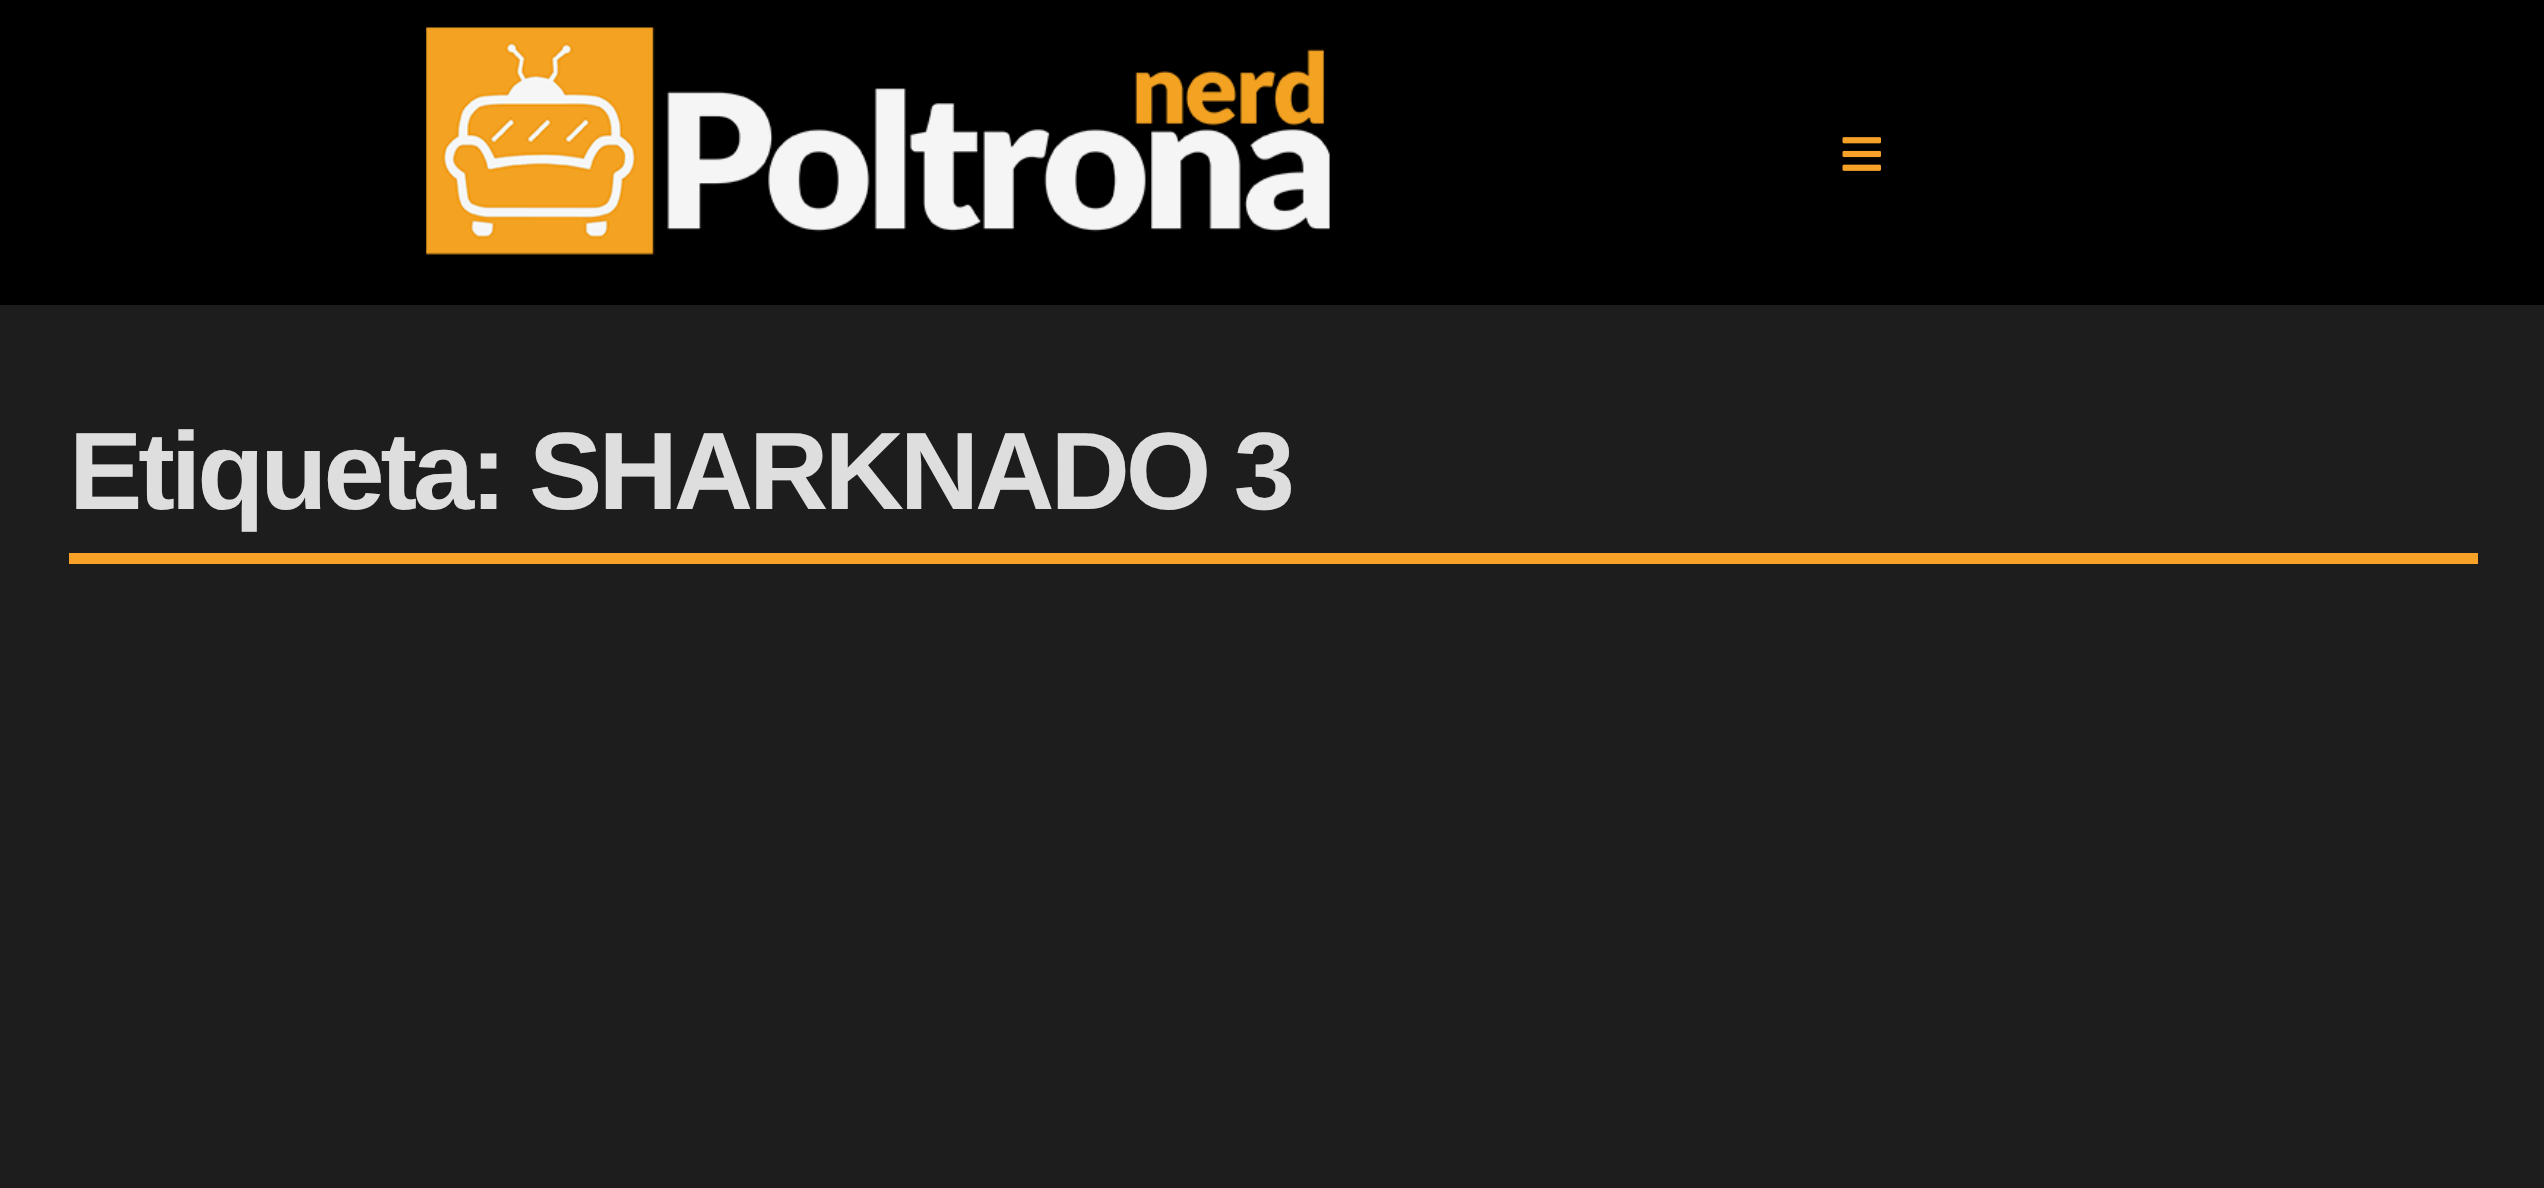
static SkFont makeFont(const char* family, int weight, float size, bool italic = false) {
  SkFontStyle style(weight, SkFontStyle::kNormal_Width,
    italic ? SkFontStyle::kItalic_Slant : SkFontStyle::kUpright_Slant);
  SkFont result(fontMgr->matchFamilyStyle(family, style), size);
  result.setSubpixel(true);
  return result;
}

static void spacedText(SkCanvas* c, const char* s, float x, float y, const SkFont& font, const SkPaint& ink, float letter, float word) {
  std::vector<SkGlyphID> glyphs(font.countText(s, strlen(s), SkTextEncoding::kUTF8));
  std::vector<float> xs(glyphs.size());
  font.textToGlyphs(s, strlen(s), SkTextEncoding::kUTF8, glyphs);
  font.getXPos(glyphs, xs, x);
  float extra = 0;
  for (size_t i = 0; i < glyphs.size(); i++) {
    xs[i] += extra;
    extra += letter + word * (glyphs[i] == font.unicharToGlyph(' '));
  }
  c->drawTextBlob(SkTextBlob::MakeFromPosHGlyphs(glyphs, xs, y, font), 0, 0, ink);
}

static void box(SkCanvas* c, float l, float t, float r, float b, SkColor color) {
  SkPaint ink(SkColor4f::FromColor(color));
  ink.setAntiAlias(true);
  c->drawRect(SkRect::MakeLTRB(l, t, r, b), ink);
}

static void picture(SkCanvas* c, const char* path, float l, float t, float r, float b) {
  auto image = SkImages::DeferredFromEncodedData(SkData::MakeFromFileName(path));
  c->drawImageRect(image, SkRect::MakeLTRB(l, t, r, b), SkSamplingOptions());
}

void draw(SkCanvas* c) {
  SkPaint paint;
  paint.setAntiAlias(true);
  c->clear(0xff1e1d1d);
  box(c, 0, 0, 2544, 305, 0xff000000);
  picture(c, "img_01.png", 426, 27, 1330, 255);
  picture(c, "img_02.png", 1842, 137, 1881, 171);
  box(c, 69, 553, 2478, 564, 0xfff6a128);
  SkFont face1 = makeFont("Liberation Sans", 700, 110);
  paint.setColor(0xffdedede);
  spacedText(c, "Etiqueta: SHARKNADO 3", 69, 509, face1, paint, -4.1f, 0);
}
